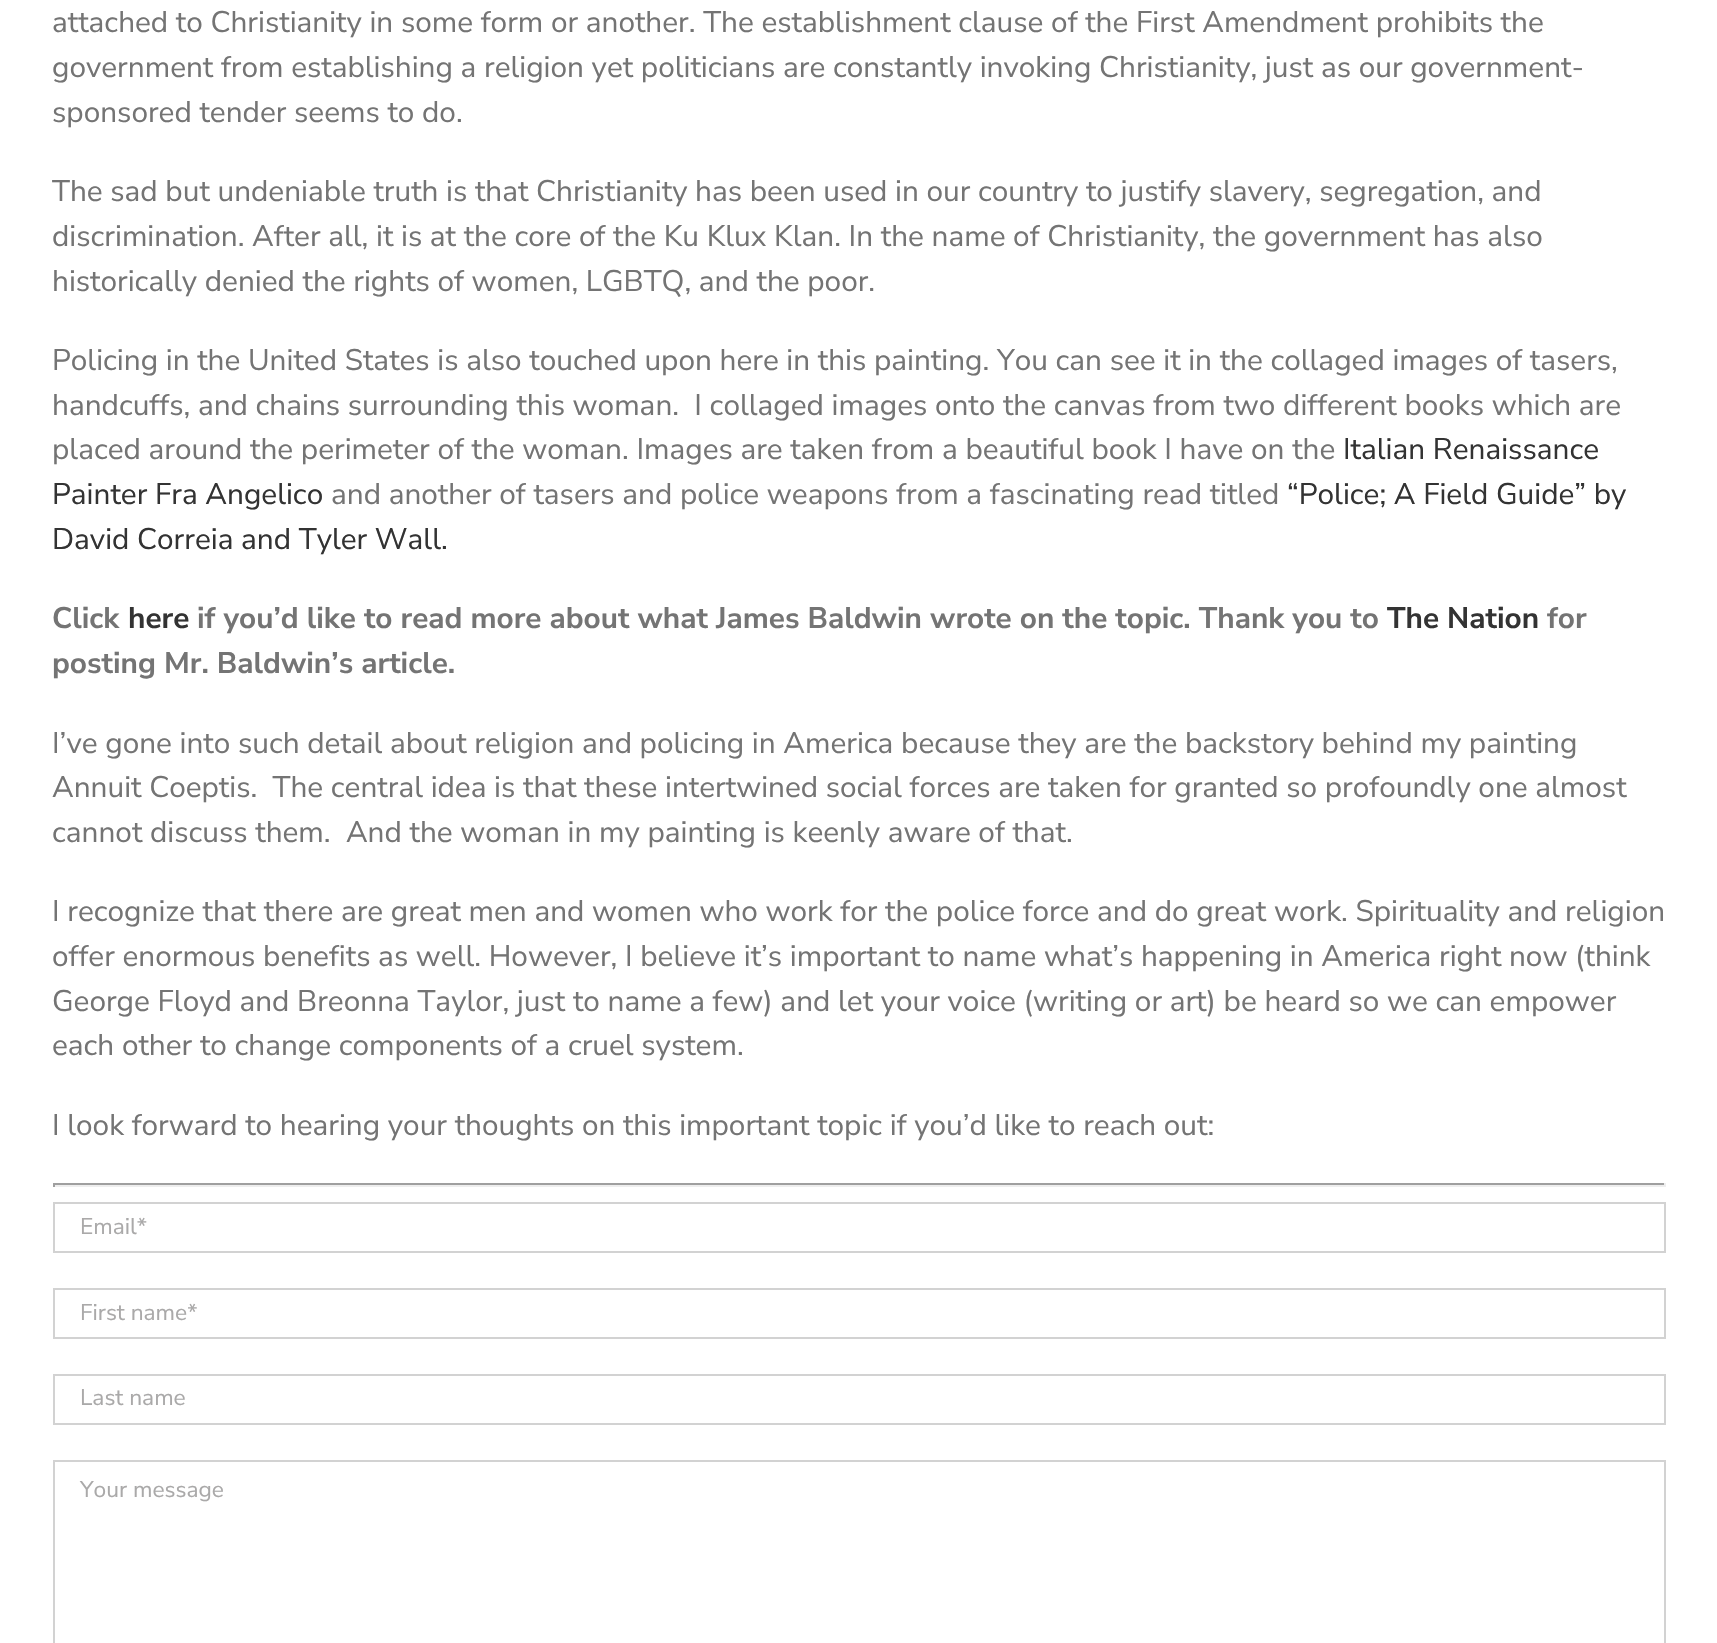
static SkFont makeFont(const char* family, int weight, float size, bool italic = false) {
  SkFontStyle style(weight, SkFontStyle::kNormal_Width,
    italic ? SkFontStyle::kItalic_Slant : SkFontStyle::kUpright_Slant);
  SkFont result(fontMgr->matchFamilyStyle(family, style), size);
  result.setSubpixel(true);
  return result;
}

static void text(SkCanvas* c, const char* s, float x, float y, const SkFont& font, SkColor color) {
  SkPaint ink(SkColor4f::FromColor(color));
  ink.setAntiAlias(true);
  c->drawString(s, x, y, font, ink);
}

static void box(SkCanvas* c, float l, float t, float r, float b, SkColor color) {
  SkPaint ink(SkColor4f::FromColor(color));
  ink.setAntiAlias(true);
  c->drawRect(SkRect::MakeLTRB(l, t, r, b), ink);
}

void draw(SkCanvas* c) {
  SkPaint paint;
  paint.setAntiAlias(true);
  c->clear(0xffffffff);
  SkFont face1 = makeFont("Nunito Sans", 400, 29.75f);
  text(c, "attached to Christianity in some form or another. The establishment clause of the First Amendment prohibits the", 52, 32, face1, 0xff747474);
  text(c, "government from establishing a religion yet politicians are constantly invoking Christianity, just as our government-", 52, 77, face1, 0xff747474);
  text(c, "sponsored tender seems to do.", 52, 122, face1, 0xff747474);
  text(c, "The sad but undeniable truth is that Christianity has been used in our country to justify slavery, segregation, and", 52, 201, face1, 0xff747474);
  text(c, "discrimination. After all, it is at the core of the Ku Klux Klan. In the name of Christianity, the government has also", 52, 246, face1, 0xff747474);
  text(c, "historically denied the rights of women, LGBTQ, and the poor.", 52, 291, face1, 0xff747474);
  text(c, "Policing in the United States is also touched upon here in this painting. You can see it in the collaged images of tasers,", 52, 370, face1, 0xff747474);
  text(c, "handcuffs, and chains surrounding this woman.  I collaged images onto the canvas from two different books which are", 52, 415, face1, 0xff747474);
  text(c, "placed around the perimeter of the woman. Images are taken from a beautiful book I have on the", 52, 459, face1, 0xff747474);
  text(c, "Italian Renaissance", 1343, 459, face1, 0xff333333);
  text(c, "Painter Fra Angelico", 52, 504, face1, 0xff333333);
  text(c, "and another of tasers and police weapons from a fascinating read titled", 331, 504, face1, 0xff747474);
  text(c, "“Police; A Field Guide” by", 1287, 504, face1, 0xff333333);
  text(c, "David Correia and Tyler Wall.", 52, 549, face1, 0xff333333);
  SkFont face2 = makeFont("Nunito Sans", 700, 29.75f);
  text(c, "Click", 52, 628, face2, 0xff747474);
  text(c, "here", 128, 628, face2, 0xff333333);
  text(c, "if you’d like to read more about what James Baldwin wrote on the topic. Thank you to", 197, 628, face2, 0xff747474);
  text(c, "The Nation", 1387, 628, face2, 0xff333333);
  text(c, "for", 1547, 628, face2, 0xff747474);
  text(c, "posting Mr. Baldwin’s article.", 52, 673, face2, 0xff747474);
  text(c, "I’ve gone into such detail about religion and policing in America because they are the backstory behind my painting", 52, 753, face1, 0xff747474);
  text(c, "Annuit Coeptis.  The central idea is that these intertwined social forces are taken for granted so profoundly one almost", 52, 797, face1, 0xff747474);
  text(c, "cannot discuss them.  And the woman in my painting is keenly aware of that.", 52, 842, face1, 0xff747474);
  text(c, "I recognize that there are great men and women who work for the police force and do great work. Spirituality and religion", 52, 921, face1, 0xff747474);
  text(c, "offer enormous benefits as well. However, I believe it’s important to name what’s happening in America right now (think", 52, 966, face1, 0xff747474);
  text(c, "George Floyd and Breonna Taylor, just to name a few) and let your voice (writing or art) be heard so we can empower", 52, 1011, face1, 0xff747474);
  text(c, "each other to change components of a cruel system.", 52, 1055, face1, 0xff747474);
  text(c, "I look forward to hearing your thoughts on this important topic if you’d like to reach out:", 52, 1135, face1, 0xff747474);
  box(c, 53, 1183, 1666, 1185, 0xff9f9f9f);
  box(c, 1664, 1183, 1666, 1187, 0xffeeeeee);
  box(c, 53, 1185, 1666, 1187, 0xffeeeeee);
  box(c, 53, 1183, 55, 1187, 0xff9f9f9f);
  paint.setStyle(SkPaint::kStroke_Style);
  paint.setStrokeWidth(2);
  paint.setColor(0xffd2d2d2);
  c->drawRect(SkRect::MakeLTRB(54, 1203, 1665, 1252), paint);
  SkFont face3 = makeFont("Nunito Sans", 400, 22.75f);
  text(c, "Email*", 80, 1234, face3, 0xffaaa9a9);
  c->drawRect(SkRect::MakeLTRB(54, 1289, 1665, 1338), paint);
  text(c, "First name*", 80, 1320, face3, 0xffaaa9a9);
  c->drawRect(SkRect::MakeLTRB(54, 1375, 1665, 1424), paint);
  text(c, "Last name", 80, 1405, face3, 0xffaaa9a9);
  c->drawRect(SkRect::MakeLTRB(54, 1461, 1665, 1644), paint);
  text(c, "Your message", 80, 1497, face3, 0xffaaa9a9);
}
